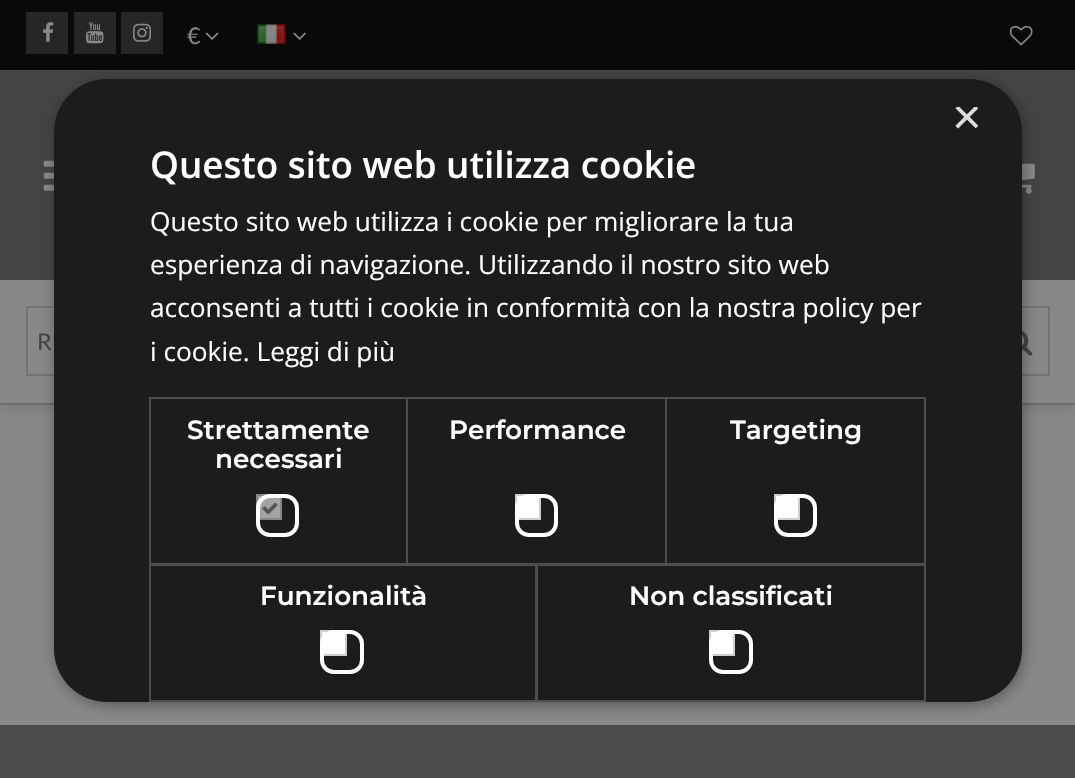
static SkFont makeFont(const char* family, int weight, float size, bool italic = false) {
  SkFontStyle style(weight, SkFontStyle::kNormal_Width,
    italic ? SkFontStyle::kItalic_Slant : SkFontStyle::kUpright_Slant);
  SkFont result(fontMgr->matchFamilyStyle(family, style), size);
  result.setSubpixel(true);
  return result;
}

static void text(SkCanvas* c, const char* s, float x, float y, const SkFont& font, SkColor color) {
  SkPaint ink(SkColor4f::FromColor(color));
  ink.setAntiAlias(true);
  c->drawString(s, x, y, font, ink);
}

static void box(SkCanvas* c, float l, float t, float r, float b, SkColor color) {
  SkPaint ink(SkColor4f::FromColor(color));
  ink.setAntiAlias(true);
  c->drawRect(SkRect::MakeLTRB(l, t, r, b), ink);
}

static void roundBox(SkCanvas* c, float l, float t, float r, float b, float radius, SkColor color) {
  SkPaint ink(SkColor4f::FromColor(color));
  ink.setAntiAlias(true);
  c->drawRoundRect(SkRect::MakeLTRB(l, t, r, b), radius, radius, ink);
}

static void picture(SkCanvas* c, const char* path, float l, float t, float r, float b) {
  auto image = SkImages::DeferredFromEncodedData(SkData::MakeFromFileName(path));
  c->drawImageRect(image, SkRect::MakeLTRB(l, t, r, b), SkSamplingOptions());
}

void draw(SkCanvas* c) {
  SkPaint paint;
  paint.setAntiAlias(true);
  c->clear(0xff888888);
  box(c, 0, 0, 1075, 70, 0xff090909);
  box(c, 26, 12, 68, 54, 0xff262626);
  picture(c, "img_01.png", 43, 22, 54, 42);
  box(c, 74, 12, 116, 54, 0xff262626);
  picture(c, "img_02.png", 86, 22, 104, 44);
  box(c, 121, 12, 163, 54, 0xff262626);
  picture(c, "img_03.png", 133, 23, 151, 42);
  SkFont face1 = makeFont("Lato", 400, 23);
  text(c, "€", 187, 44, face1, 0xff888888);
  picture(c, "img_04.png", 205, 32, 219, 40);
  picture(c, "img_05.png", 257, 24, 286, 44);
  picture(c, "img_06.png", 293, 32, 306, 40);
  picture(c, "img_07.png", 1009, 25, 1033, 46);
  box(c, 0, 403, 1075, 405, 0xff747373);
  paint.setColor(0x26090909);
  paint.setMaskFilter(SkMaskFilter::MakeBlur(kNormal_SkBlurStyle, 9));
  c->drawRect(SkRect::MakeLTRB(0, 284, 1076, 406), paint);
  paint.setMaskFilter(nullptr);
  box(c, 0, 70, 1075, 280, 0xff444444);
  picture(c, "img_08.png", 43, 160, 54, 191);
  picture(c, "img_09.png", 1022, 163, 1035, 194);
  box(c, 0, 280, 1075, 403, 0xff888888);
  paint.setStyle(SkPaint::kStroke_Style);
  paint.setStrokeWidth(2);
  paint.setColor(0xff747373);
  c->drawRect(SkRect::MakeLTRB(27, 307, 1049, 375), paint);
  text(c, "R", 37, 350, face1, 0xff444444);
  picture(c, "img_10.png", 1022, 331, 1033, 356);
  box(c, 0, 725, 1075, 778, 0xff494b4d);
  paint.setStyle(SkPaint::kFill_Style);
  paint.setColor(0x59000000);
  paint.setMaskFilter(SkMaskFilter::MakeBlur(kNormal_SkBlurStyle, 7));
  c->drawRoundRect(SkRect::MakeLTRB(56, 82, 1024, 705), 53, 53, paint);
  paint.setMaskFilter(nullptr);
  roundBox(c, 54, 79, 1022, 702, 53, 0xff1c1c1c);
  c->save();
  c->clipRect(SkRect::MakeLTRB(952, 107, 978, 133));
  SkFont face2 = makeFont("Liberation Sans", 400, 51);
  text(c, "×", 952, 134, face2, 0xffdddddd);
  c->restore();
  SkFont face3 = makeFont("Open Sans", 600, 36.75f);
  text(c, "Questo sito web utilizza cookie", 150, 178, face3, 0xffffffff);
  SkFont face4 = makeFont("Open Sans", 400, 26.25f);
  text(c, "Questo sito web utilizza i cookie per migliorare la tua", 150, 231, face4, 0xffffffff);
  text(c, "esperienza di navigazione. Utilizzando il nostro sito web", 150, 274, face4, 0xffffffff);
  text(c, "acconsenti a tutti i cookie in conformità con la nostra policy per", 150, 317, face4, 0xffffffff);
  text(c, "i cookie. Leggi di più", 150, 361, face4, 0xffffffff);
  paint.setStyle(SkPaint::kStroke_Style);
  paint.setColor(0xff4d4d4d);
  c->drawRect(SkRect::MakeLTRB(150, 398, 407, 564), paint);
  SkFont face5 = makeFont("Montserrat", 600, 26.25f);
  text(c, "Strettamente", 187, 439, face5, 0xffffffff);
  text(c, "necessari", 215, 468, face5, 0xffffffff);
  paint.setStyle(SkPaint::kFill_Style);
  paint.setColor(0xffa4a4a4);
  c->drawRect(SkRect::MakeLTRB(257, 495, 281, 519), paint);
  paint.setStyle(SkPaint::kStroke_Style);
  paint.setColor(0xff878787);
  c->drawRect(SkRect::MakeLTRB(257, 495, 281, 519), paint);
  picture(c, "img_11.png", 262, 502, 278, 515);
  paint.setStrokeWidth(4);
  paint.setColor(0xffffffff);
  c->drawRoundRect(SkRect::MakeLTRB(258, 496, 297, 535), 12, 12, paint);
  paint.setStrokeWidth(2);
  paint.setColor(0xff4d4d4d);
  c->drawRect(SkRect::MakeLTRB(407, 398, 666, 564), paint);
  text(c, "Performance", 449, 439, face5, 0xffffffff);
  paint.setStyle(SkPaint::kFill_Style);
  paint.setColor(0xffffffff);
  c->drawRect(SkRect::MakeLTRB(516, 495, 540, 519), paint);
  paint.setStyle(SkPaint::kStroke_Style);
  paint.setColor(0xffcecece);
  c->drawRect(SkRect::MakeLTRB(516, 495, 540, 519), paint);
  paint.setStrokeWidth(4);
  paint.setColor(0xffffffff);
  c->drawRoundRect(SkRect::MakeLTRB(517, 496, 556, 535), 12, 12, paint);
  paint.setStrokeWidth(2);
  paint.setColor(0xff4d4d4d);
  c->drawRect(SkRect::MakeLTRB(666, 398, 925, 564), paint);
  text(c, "Targeting", 730, 439, face5, 0xffffffff);
  paint.setStyle(SkPaint::kFill_Style);
  paint.setColor(0xffffffff);
  c->drawRect(SkRect::MakeLTRB(775, 495, 799, 519), paint);
  paint.setStyle(SkPaint::kStroke_Style);
  paint.setColor(0xffcecece);
  c->drawRect(SkRect::MakeLTRB(775, 495, 799, 519), paint);
  paint.setStrokeWidth(4);
  paint.setColor(0xffffffff);
  c->drawRoundRect(SkRect::MakeLTRB(776, 496, 815, 535), 12, 12, paint);
  paint.setStrokeWidth(2);
  paint.setColor(0xff4d4d4d);
  c->drawRect(SkRect::MakeLTRB(150, 565, 536, 701), paint);
  text(c, "Funzionalità", 260, 605, face5, 0xffffffff);
  paint.setStyle(SkPaint::kFill_Style);
  paint.setColor(0xffffffff);
  c->drawRect(SkRect::MakeLTRB(321, 631, 346, 655), paint);
  paint.setStyle(SkPaint::kStroke_Style);
  paint.setColor(0xffcecece);
  c->drawRect(SkRect::MakeLTRB(321, 631, 346, 655), paint);
  paint.setStrokeWidth(4);
  paint.setColor(0xffffffff);
  c->drawRoundRect(SkRect::MakeLTRB(322, 632, 362, 672), 12, 12, paint);
  paint.setStrokeWidth(2);
  paint.setColor(0xff4d4d4d);
  c->drawRect(SkRect::MakeLTRB(537, 565, 925, 701), paint);
  text(c, "Non classificati", 629, 605, face5, 0xffffffff);
  paint.setStyle(SkPaint::kFill_Style);
  paint.setColor(0xffffffff);
  c->drawRect(SkRect::MakeLTRB(710, 631, 734, 655), paint);
  paint.setStyle(SkPaint::kStroke_Style);
  paint.setColor(0xffcecece);
  c->drawRect(SkRect::MakeLTRB(710, 631, 734, 655), paint);
  paint.setStrokeWidth(4);
  paint.setColor(0xffffffff);
  c->drawRoundRect(SkRect::MakeLTRB(711, 632, 751, 672), 12, 12, paint);
}
